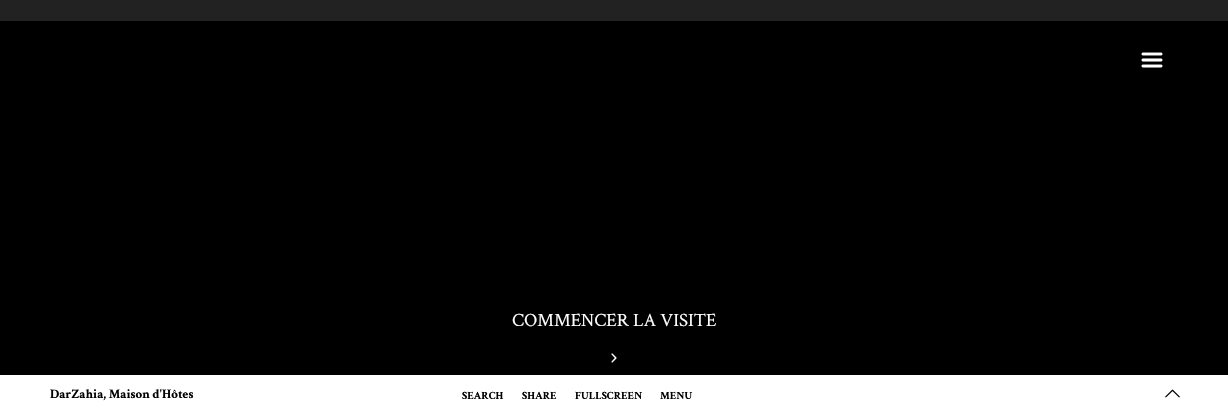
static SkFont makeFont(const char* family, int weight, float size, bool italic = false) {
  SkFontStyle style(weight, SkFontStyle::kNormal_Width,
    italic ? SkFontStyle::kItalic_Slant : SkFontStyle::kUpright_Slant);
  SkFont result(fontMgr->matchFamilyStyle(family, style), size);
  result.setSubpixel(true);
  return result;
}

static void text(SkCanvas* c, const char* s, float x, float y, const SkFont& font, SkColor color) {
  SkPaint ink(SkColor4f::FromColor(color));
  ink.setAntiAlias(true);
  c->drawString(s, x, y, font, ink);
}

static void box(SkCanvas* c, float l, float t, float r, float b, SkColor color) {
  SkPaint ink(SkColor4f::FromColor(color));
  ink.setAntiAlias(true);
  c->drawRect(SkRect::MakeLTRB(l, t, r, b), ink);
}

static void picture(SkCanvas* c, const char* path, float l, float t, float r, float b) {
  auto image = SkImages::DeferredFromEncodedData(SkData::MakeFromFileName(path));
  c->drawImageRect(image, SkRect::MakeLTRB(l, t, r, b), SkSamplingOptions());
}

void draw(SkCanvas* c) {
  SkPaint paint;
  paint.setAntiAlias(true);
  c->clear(0xff222222);
  box(c, 0, 21, 1228, 375, 0xff000000);
  picture(c, "img_01.png", 1141, 52, 1163, 68);
  SkFont face1 = makeFont("Crimson Text", 400, 18.75f);
  text(c, "COMMENCER LA VISITE", 512, 326, face1, 0xffffffff);
  picture(c, "img_02.png", 611, 353, 617, 363);
  box(c, 0, 375, 1228, 415, 0xffffffff);
  SkFont face2 = makeFont("Crimson Text", 700, 13);
  text(c, "DarZahia, Maison d'Hôtes", 50, 398, face2, 0xff000000);
  SkFont face3 = makeFont("Crimson Text", 700, 11);
  text(c, "SEARCH", 462, 399, face3, 0xff000000);
  text(c, "SHARE", 522, 399, face3, 0xff000000);
  text(c, "FULLSCREEN", 575, 399, face3, 0xff000000);
  text(c, "MENU", 660, 399, face3, 0xff000000);
  picture(c, "img_03.png", 1165, 389, 1180, 398);
}
